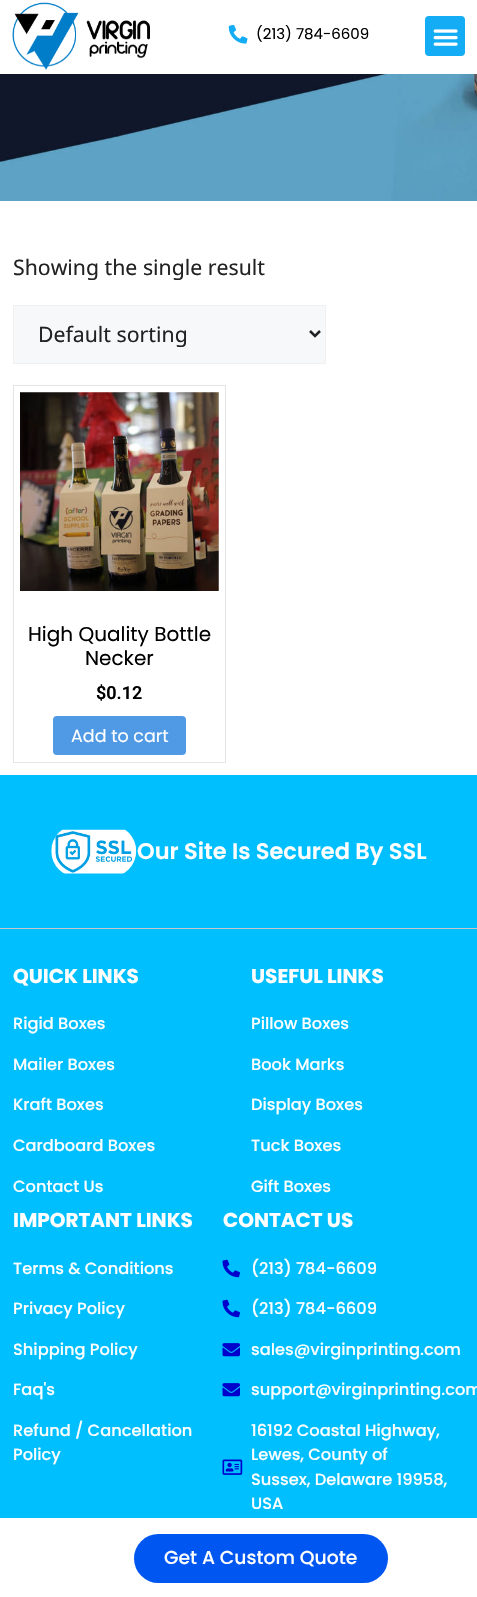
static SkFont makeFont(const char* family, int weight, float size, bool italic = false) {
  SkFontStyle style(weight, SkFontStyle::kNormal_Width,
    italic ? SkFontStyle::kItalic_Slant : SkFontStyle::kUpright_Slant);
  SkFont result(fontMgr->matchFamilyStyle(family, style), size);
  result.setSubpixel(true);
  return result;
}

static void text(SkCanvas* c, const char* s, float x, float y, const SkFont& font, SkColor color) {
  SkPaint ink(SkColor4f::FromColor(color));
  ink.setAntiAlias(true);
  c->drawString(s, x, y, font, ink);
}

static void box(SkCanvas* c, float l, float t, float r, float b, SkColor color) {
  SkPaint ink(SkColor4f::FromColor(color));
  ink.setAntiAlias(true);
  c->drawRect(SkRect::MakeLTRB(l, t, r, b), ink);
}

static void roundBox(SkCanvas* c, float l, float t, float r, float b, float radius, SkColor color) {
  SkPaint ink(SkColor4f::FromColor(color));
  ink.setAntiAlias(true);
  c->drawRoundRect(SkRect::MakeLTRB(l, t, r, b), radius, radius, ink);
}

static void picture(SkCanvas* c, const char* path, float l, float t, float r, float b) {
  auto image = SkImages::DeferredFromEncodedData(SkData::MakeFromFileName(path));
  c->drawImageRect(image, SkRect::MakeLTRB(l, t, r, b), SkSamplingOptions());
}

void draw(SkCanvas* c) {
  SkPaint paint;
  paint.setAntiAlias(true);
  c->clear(0xffffffff);
  picture(c, "img_01.png", 12, 2, 150, 70);
  picture(c, "img_02.png", 228, 24, 248, 44);
  SkFont face1 = makeFont("Poppins", 400, 15);
  text(c, "(213) 784-6609", 256, 39, face1, 0xff000000);
  roundBox(c, 425, 16, 465, 56, 4, 0xff13acf5);
  picture(c, "img_03.png", 433, 29, 458, 46);
  picture(c, "img_04.png", 0, 74, 477, 201);
  SkFont face2 = makeFont("Noto Sans", 400, 21.25f);
  text(c, "Showing the single result", 13, 275, face2, 0xff222222);
  paint.setColor(0xfff7f8f9);
  c->drawRect(SkRect::MakeLTRB(13.5f, 305.5f, 325.5f, 363.5f), paint);
  paint.setStyle(SkPaint::kStroke_Style);
  paint.setStrokeWidth(1);
  paint.setColor(0xfff0f0f0);
  c->drawRect(SkRect::MakeLTRB(13.5f, 305.5f, 325.5f, 363.5f), paint);
  paint.setStrokeWidth(2.5f);
  paint.setColor(0xff222222);
  c->drawPath(SkPathBuilder().moveTo(310, 331).lineTo(315, 336).lineTo(320, 331).detach(), paint);
  text(c, "Default sorting", 38, 342, face2, 0xff222222);
  paint.setStrokeWidth(1);
  paint.setColor(0xffe5e5e5);
  c->drawRect(SkRect::MakeLTRB(13.5f, 385.5f, 225.5f, 762.5f), paint);
  picture(c, "img_05.png", 20, 392, 219, 591);
  SkFont face3 = makeFont("Poppins", 400, 20);
  text(c, "High Quality Bottle", 28, 641, face3, 0xff000000);
  text(c, "Necker", 85, 665, face3, 0xff000000);
  SkFont face4 = makeFont("Roboto", 600, 18);
  text(c, "$0.12", 96, 699, face4, 0xff000000);
  roundBox(c, 53, 716, 186, 755, 4, 0xff509ae5);
  SkFont face5 = makeFont("Poppins", 400, 17.5f);
  text(c, "Add to cart", 71, 742, face5, 0xffffffff);
  box(c, 0, 775, 477, 928, 0xff00bfff);
  box(c, 0, 928, 477, 929, 0xffc6c6c6);
  picture(c, "img_06.png", 51, 829, 137, 874);
  SkFont face6 = makeFont("Poppins", 600, 22.5f);
  text(c, "Our Site Is Secured By SSL", 137, 859, face6, 0xffffffff);
  box(c, 0, 929, 477, 1518, 0xff00bfff);
  SkFont face7 = makeFont("Poppins", 700, 20);
  text(c, "QUICK LINKS", 13, 983, face7, 0xffffffff);
  SkFont face8 = makeFont("Poppins", 500, 16.25f);
  text(c, "Rigid Boxes", 13, 1029, face8, 0xffffffff);
  text(c, "Mailer Boxes", 13, 1070, face8, 0xffffffff);
  text(c, "Kraft Boxes", 13, 1110, face8, 0xffffffff);
  text(c, "Cardboard Boxes", 13, 1151, face8, 0xffffffff);
  text(c, "Contact Us", 13, 1192, face8, 0xffffffff);
  text(c, "USEFUL LINKS", 251, 983, face7, 0xffffffff);
  text(c, "Pillow Boxes", 251, 1029, face8, 0xffffffff);
  text(c, "Book Marks", 251, 1070, face8, 0xffffffff);
  text(c, "Display Boxes", 251, 1110, face8, 0xffffffff);
  text(c, "Tuck Boxes", 251, 1151, face8, 0xffffffff);
  text(c, "Gift Boxes", 251, 1192, face8, 0xffffffff);
  text(c, "IMPORTANT LINKS", 13, 1227, face7, 0xffffffff);
  text(c, "Terms & Conditions", 13, 1274, face8, 0xffffffff);
  text(c, "Privacy Policy", 13, 1314, face8, 0xffffffff);
  text(c, "Shipping Policy", 13, 1355, face8, 0xffffffff);
  text(c, "Faq's", 13, 1395, face8, 0xffffffff);
  text(c, "Refund / Cancellation", 13, 1436, face8, 0xffffffff);
  text(c, "Policy", 13, 1460, face8, 0xffffffff);
  text(c, "CONTACT US", 223, 1227, face7, 0xffffffff);
  picture(c, "img_07.png", 222, 1259, 240, 1278);
  text(c, "(213) 784-6609", 251, 1274, face8, 0xffffffff);
  picture(c, "img_07.png", 222, 1299, 240, 1318);
  text(c, "(213) 784-6609", 251, 1314, face8, 0xffffffff);
  picture(c, "img_08.png", 222, 1343, 240, 1357);
  text(c, "sales@virginprinting.com", 251, 1355, face8, 0xffffffff);
  picture(c, "img_08.png", 222, 1383, 240, 1397);
  text(c, "support@virginprinting.com", 251, 1395, face8, 0xffffffff);
  picture(c, "img_09.png", 222, 1459, 243, 1475);
  text(c, "16192 Coastal Highway,", 251, 1436, face8, 0xffffffff);
  text(c, "Lewes, County of", 251, 1460, face8, 0xffffffff);
  text(c, "Sussex, Delaware 19958,", 251, 1485, face8, 0xffffffff);
  text(c, "USA", 251, 1509, face8, 0xffffffff);
  roundBox(c, 134, 1534, 388, 1583, 24.5f, 0xff0056f0);
  SkFont face9 = makeFont("Poppins", 500, 18.75f);
  text(c, "Get A Custom Quote", 164, 1564, face9, 0xffffffff);
}
